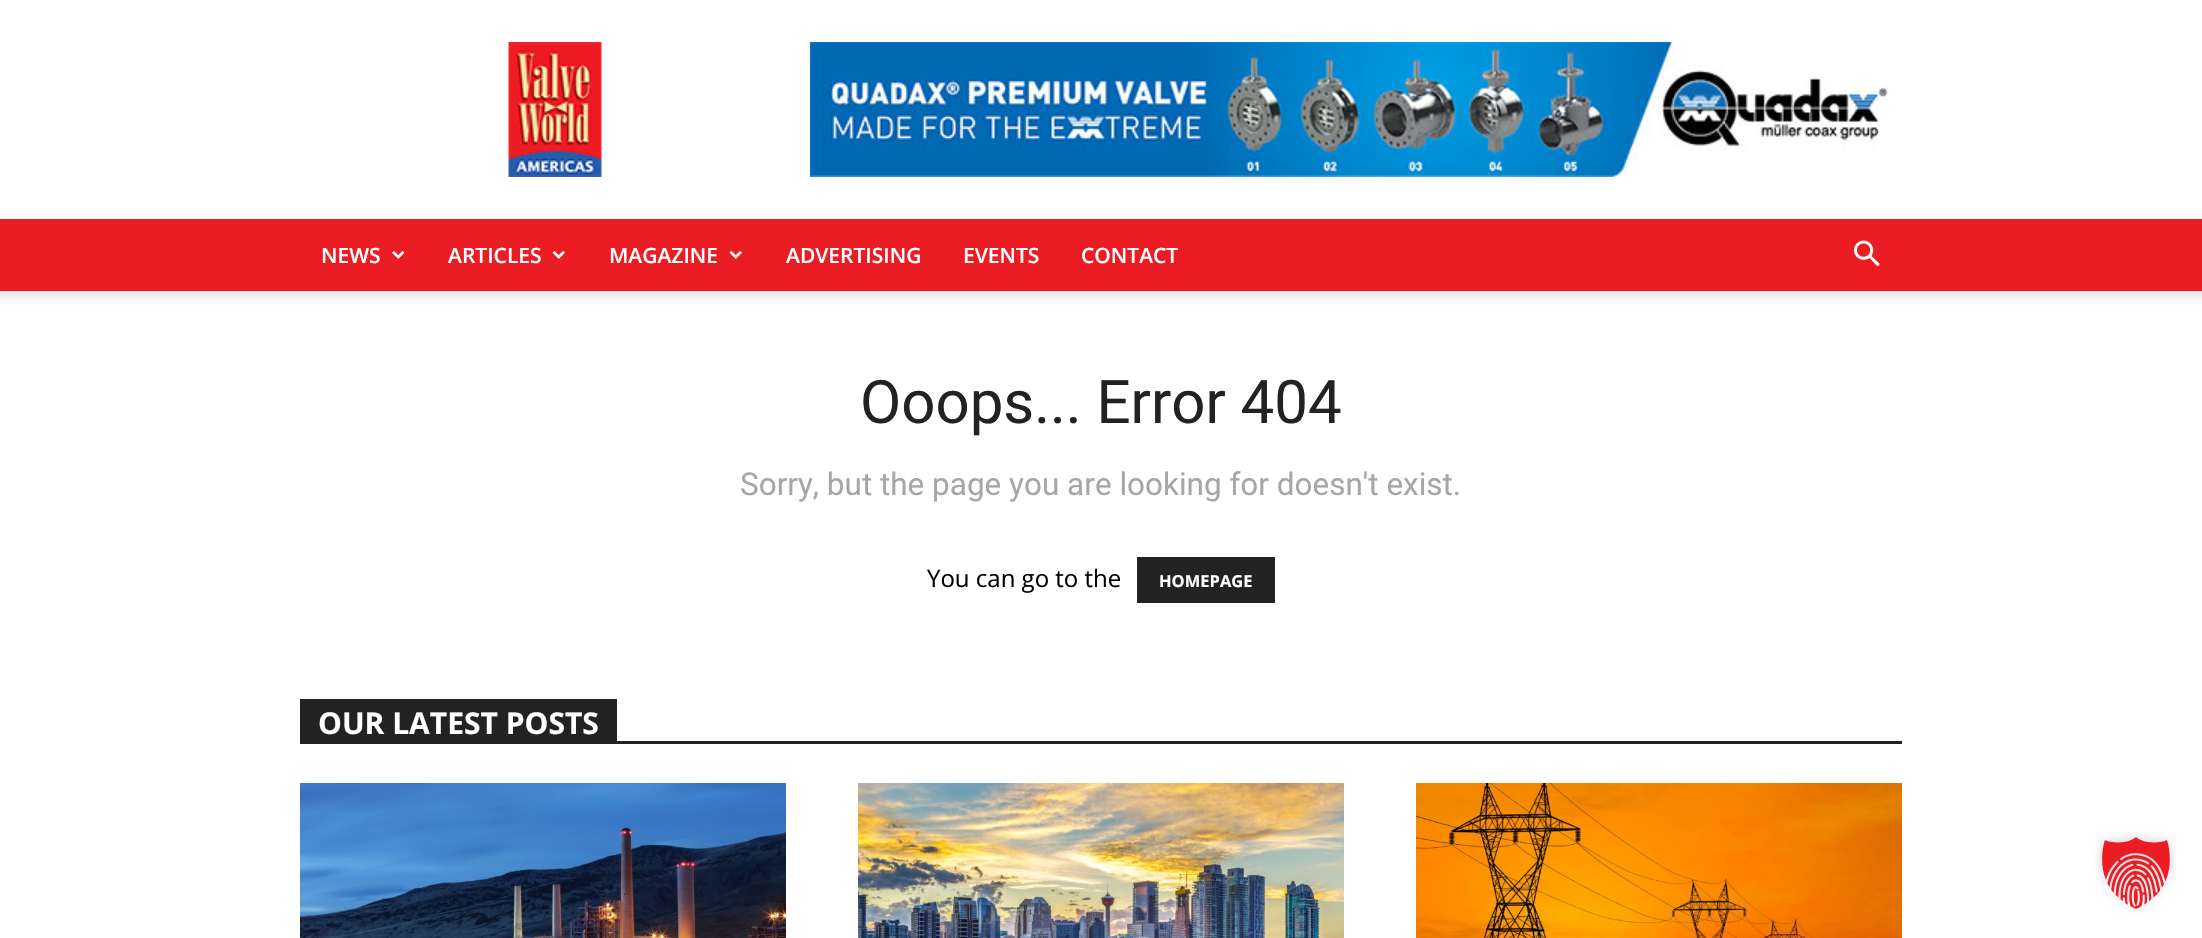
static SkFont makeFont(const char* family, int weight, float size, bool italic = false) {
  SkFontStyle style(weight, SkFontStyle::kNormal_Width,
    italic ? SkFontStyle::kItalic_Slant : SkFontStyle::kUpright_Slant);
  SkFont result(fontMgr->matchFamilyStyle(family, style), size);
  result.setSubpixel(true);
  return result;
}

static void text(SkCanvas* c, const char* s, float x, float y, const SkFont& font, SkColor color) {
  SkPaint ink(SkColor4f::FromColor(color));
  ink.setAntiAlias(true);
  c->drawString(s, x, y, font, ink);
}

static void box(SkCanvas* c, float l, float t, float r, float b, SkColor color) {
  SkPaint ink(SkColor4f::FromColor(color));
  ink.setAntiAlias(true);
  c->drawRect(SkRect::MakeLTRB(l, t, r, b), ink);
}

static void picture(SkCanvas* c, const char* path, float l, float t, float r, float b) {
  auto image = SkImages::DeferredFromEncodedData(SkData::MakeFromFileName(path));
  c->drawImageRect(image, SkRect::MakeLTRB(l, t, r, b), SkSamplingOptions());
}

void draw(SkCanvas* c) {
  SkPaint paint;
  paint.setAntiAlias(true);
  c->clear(0xffffffff);
  picture(c, "img_01.png", 508, 42, 602, 177);
  picture(c, "img_02.png", 810, 42, 1888, 177);
  box(c, 0, 219, 2202, 291, 0xffeb1c24);
  SkFont face1 = makeFont("Open Sans", 600, 21);
  text(c, "NEWS", 321, 263, face1, 0xffffffff);
  picture(c, "img_03.png", 392, 251, 405, 259);
  text(c, "ARTICLES", 448, 263, face1, 0xffffffff);
  picture(c, "img_04.png", 552, 251, 565, 259);
  text(c, "MAGAZINE", 609, 263, face1, 0xffffffff);
  picture(c, "img_04.png", 729, 251, 742, 259);
  text(c, "ADVERTISING", 786, 263, face1, 0xffffffff);
  text(c, "EVENTS", 963, 263, face1, 0xffffffff);
  text(c, "CONTACT", 1081, 263, face1, 0xffffffff);
  picture(c, "img_05.png", 1854, 240, 1880, 266);
  picture(c, "img_06.png", 0, 291, 2202, 304);
  SkFont face2 = makeFont("Roboto", 400, 60);
  text(c, "Ooops... Error 404", 860, 423, face2, 0xff222222);
  SkFont face3 = makeFont("Roboto", 400, 31.5f);
  text(c, "Sorry, but the page you are looking for doesn't exist.", 740, 495, face3, 0xffa6a6a6);
  SkFont face4 = makeFont("Open Sans", 400, 24);
  text(c, "You can go to the", 927, 587, face4, 0xff000000);
  box(c, 1137, 557, 1275, 603, 0xff222222);
  SkFont face5 = makeFont("Open Sans", 700, 16.5f);
  text(c, "HOMEPAGE", 1159, 587, face5, 0xffffffff);
  box(c, 300, 741, 1902, 744, 0xff222222);
  box(c, 300, 699, 617, 741, 0xff222222);
  SkFont face6 = makeFont("Open Sans", 700, 30);
  text(c, "OUR LATEST POSTS", 318, 734, face6, 0xffffffff);
  picture(c, "img_07.png", 300, 783, 786, 938);
  picture(c, "img_08.png", 858, 783, 1344, 938);
  picture(c, "img_09.png", 1416, 783, 1902, 938);
  picture(c, "img_10.png", 2095, 832, 2176, 913);
}
